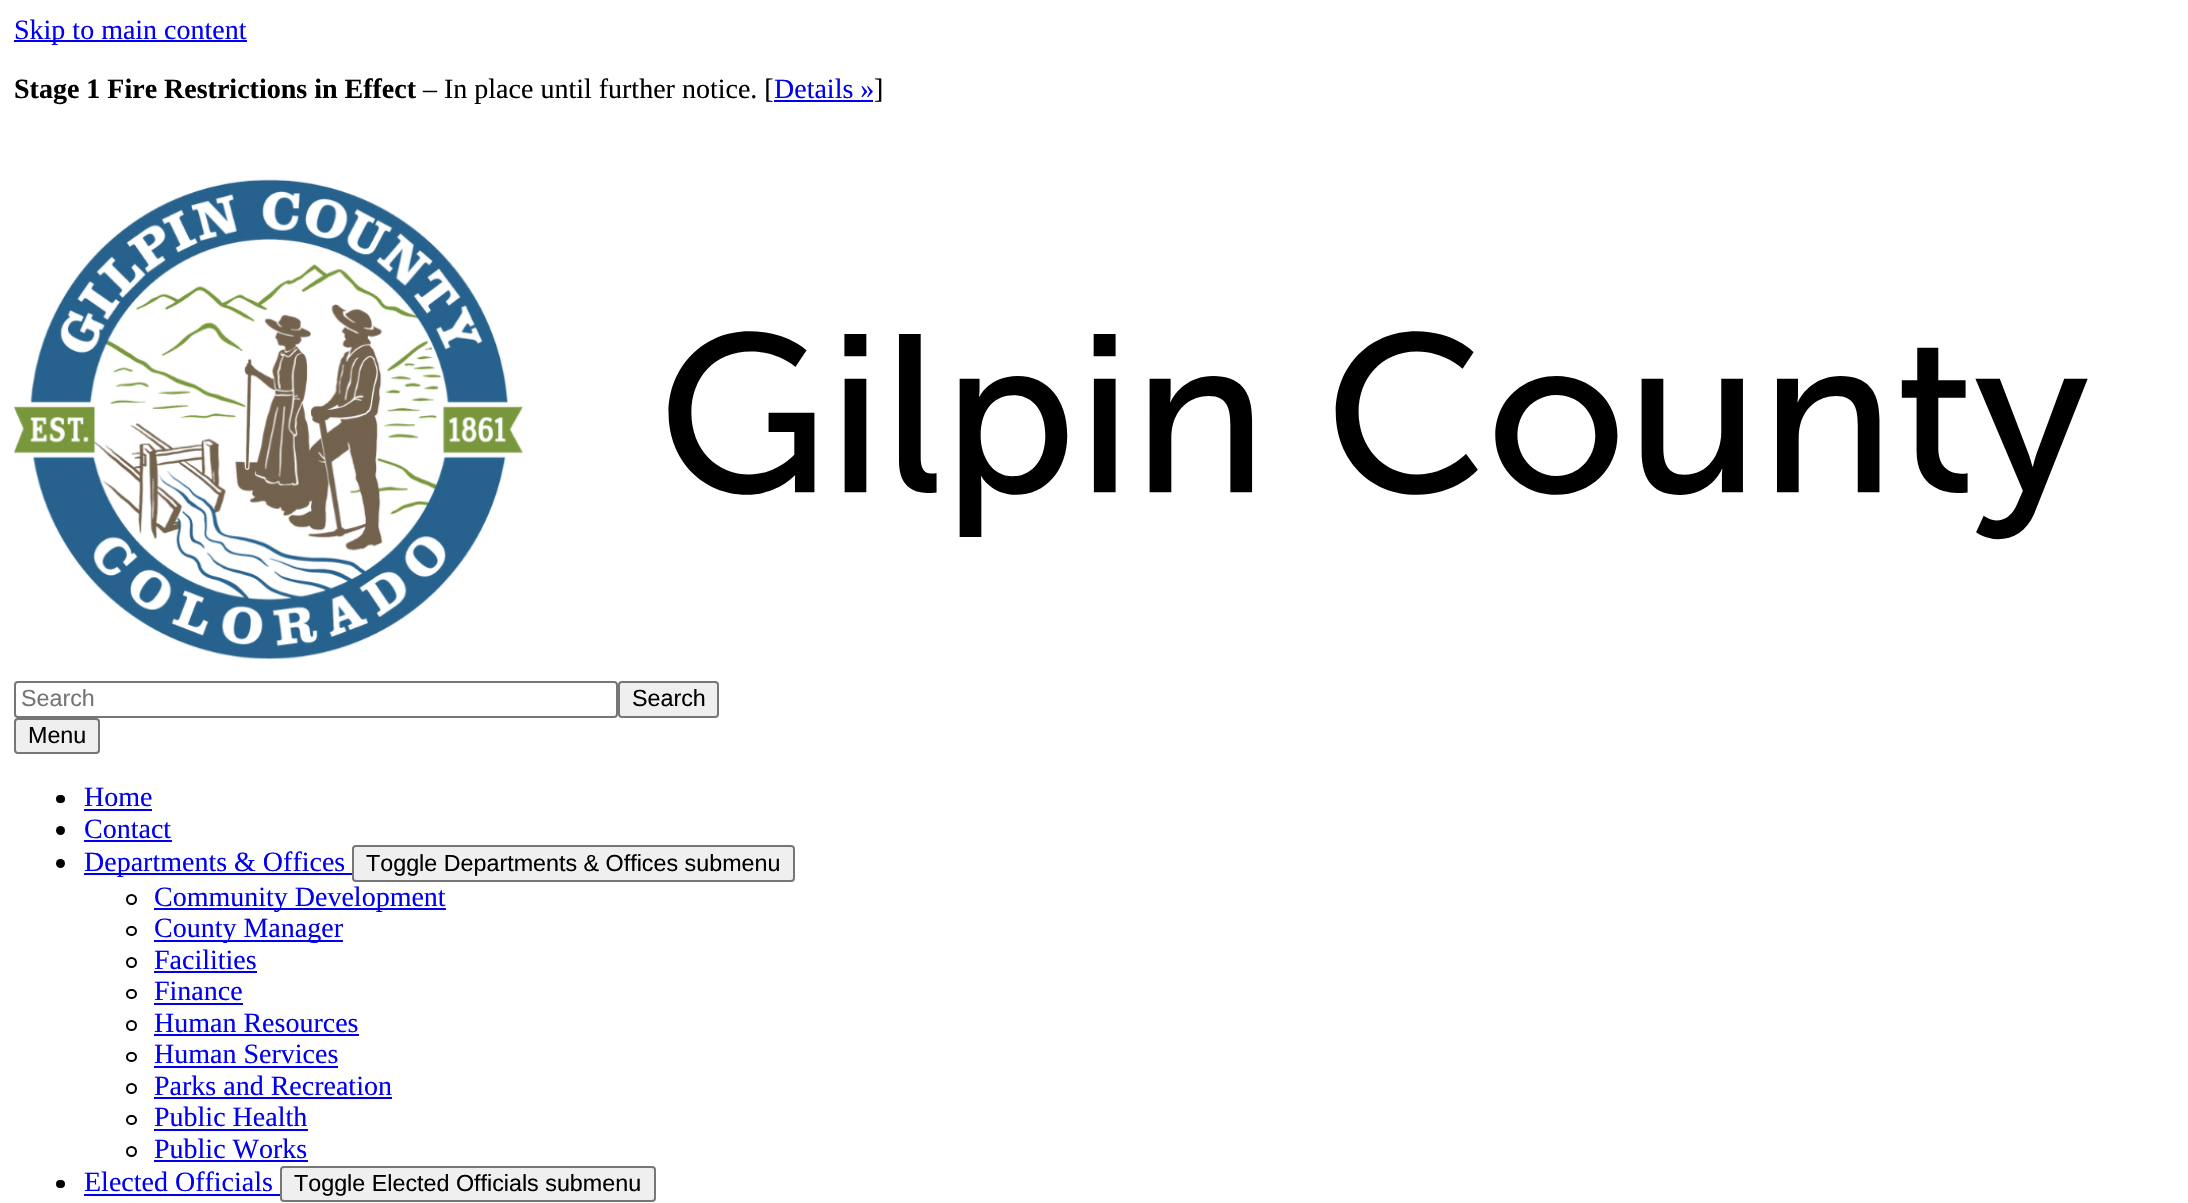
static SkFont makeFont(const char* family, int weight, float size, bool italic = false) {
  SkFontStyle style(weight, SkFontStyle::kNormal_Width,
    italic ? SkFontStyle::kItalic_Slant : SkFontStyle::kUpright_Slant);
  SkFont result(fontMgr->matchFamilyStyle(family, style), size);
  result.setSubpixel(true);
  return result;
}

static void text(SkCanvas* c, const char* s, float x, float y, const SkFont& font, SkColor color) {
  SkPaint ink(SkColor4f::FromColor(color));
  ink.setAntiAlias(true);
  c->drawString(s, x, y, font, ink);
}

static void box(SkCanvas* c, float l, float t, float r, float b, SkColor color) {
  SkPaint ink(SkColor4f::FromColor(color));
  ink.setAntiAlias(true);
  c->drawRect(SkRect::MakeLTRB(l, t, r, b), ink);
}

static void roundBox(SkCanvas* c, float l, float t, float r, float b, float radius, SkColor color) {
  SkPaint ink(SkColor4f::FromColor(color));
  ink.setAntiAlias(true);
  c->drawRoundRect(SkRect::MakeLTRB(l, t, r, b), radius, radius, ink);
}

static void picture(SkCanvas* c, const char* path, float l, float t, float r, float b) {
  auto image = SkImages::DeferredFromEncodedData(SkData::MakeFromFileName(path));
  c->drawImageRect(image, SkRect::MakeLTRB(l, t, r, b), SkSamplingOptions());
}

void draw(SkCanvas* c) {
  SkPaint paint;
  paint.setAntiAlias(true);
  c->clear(0xffffffff);
  box(c, 14, 40, 247, 42, 0xff0000ee);
  SkFont face1 = makeFont("Liberation Serif", 400, 28);
  text(c, "Skip to main content", 14, 39, face1, 0xff0000ee);
  SkFont face2 = makeFont("Liberation Serif", 700, 28);
  text(c, "Stage 1 Fire Restrictions in Effect", 14, 98, face2, 0xff000000);
  text(c, "– In place until further notice. [", 423, 98, face1, 0xff000000);
  text(c, "Details »", 774, 98, face1, 0xff0000ee);
  box(c, 774, 100, 873, 102, 0xff0000ee);
  text(c, "]", 874, 98, face1, 0xff000000);
  picture(c, "img_01.png", 14, 179, 2088, 660);
  paint.setStyle(SkPaint::kStroke_Style);
  paint.setStrokeWidth(2);
  paint.setColor(0xff767676);
  c->drawRoundRect(SkRect::MakeLTRB(15, 682, 617, 717), 3, 3, paint);
  SkFont face3 = makeFont("Liberation Sans", 400, 23.3f);
  text(c, "Search", 21, 706, face3, 0xff757575);
  paint.setStyle(SkPaint::kFill_Style);
  paint.setColor(0xffefefef);
  c->drawRoundRect(SkRect::MakeLTRB(619, 682, 718, 717), 3, 3, paint);
  paint.setStyle(SkPaint::kStroke_Style);
  paint.setColor(0xff767676);
  c->drawRoundRect(SkRect::MakeLTRB(619, 682, 718, 717), 3, 3, paint);
  text(c, "Search", 632, 706, face3, 0xff000000);
  paint.setStyle(SkPaint::kFill_Style);
  paint.setColor(0xffefefef);
  c->drawRoundRect(SkRect::MakeLTRB(15, 719, 99, 753), 3, 3, paint);
  paint.setStyle(SkPaint::kStroke_Style);
  paint.setColor(0xff767676);
  c->drawRoundRect(SkRect::MakeLTRB(15, 719, 99, 753), 3, 3, paint);
  text(c, "Menu", 28, 743, face3, 0xff000000);
  roundBox(c, 56, 795, 65, 803, 4, 0xff000000);
  text(c, "Home", 84, 806, face1, 0xff0000ee);
  box(c, 84, 809, 152, 811, 0xff0000ee);
  paint.setStyle(SkPaint::kFill_Style);
  paint.setColor(0xff000000);
  c->drawCircle(60.5f, 830.5f, 4.5f, paint);
  text(c, "Contact", 84, 838, face1, 0xff0000ee);
  box(c, 84, 840, 172, 842, 0xff0000ee);
  c->drawCircle(60.5f, 863.5f, 4.5f, paint);
  box(c, 84, 873, 352, 875, 0xff0000ee);
  text(c, "Departments & Offices", 84, 871, face1, 0xff0000ee);
  paint.setColor(0xffefefef);
  c->drawRoundRect(SkRect::MakeLTRB(353, 846, 794, 881), 3, 3, paint);
  paint.setStyle(SkPaint::kStroke_Style);
  paint.setColor(0xff767676);
  c->drawRoundRect(SkRect::MakeLTRB(353, 846, 794, 881), 3, 3, paint);
  text(c, "Toggle Departments & Offices submenu", 366, 871, face3, 0xff000000);
  paint.setColor(0xff000000);
  c->drawCircle(131.5f, 899.5f, 4.5f, paint);
  box(c, 154, 908, 446, 910, 0xff0000ee);
  text(c, "Community Development", 154, 906, face1, 0xff0000ee);
  c->drawRoundRect(SkRect::MakeLTRB(127, 927, 136, 935), 4, 4, paint);
  box(c, 154, 940, 343, 942, 0xff0000ee);
  text(c, "County Manager", 154, 937, face1, 0xff0000ee);
  c->drawCircle(131.5f, 962.5f, 4.5f, paint);
  text(c, "Facilities", 154, 969, face1, 0xff0000ee);
  box(c, 154, 971, 257, 973, 0xff0000ee);
  c->drawRoundRect(SkRect::MakeLTRB(127, 990, 136, 998), 4, 4, paint);
  text(c, "Finance", 154, 1000, face1, 0xff0000ee);
  box(c, 154, 1003, 243, 1005, 0xff0000ee);
  c->drawCircle(131.5f, 1025.5f, 4.5f, paint);
  text(c, "Human Resources", 154, 1032, face1, 0xff0000ee);
  box(c, 154, 1034, 359, 1036, 0xff0000ee);
  c->drawRoundRect(SkRect::MakeLTRB(127, 1053, 136, 1061), 4, 4, paint);
  text(c, "Human Services", 154, 1063, face1, 0xff0000ee);
  box(c, 154, 1066, 338, 1068, 0xff0000ee);
  c->drawCircle(131.5f, 1088.5f, 4.5f, paint);
  text(c, "Parks and Recreation", 154, 1095, face1, 0xff0000ee);
  box(c, 154, 1097, 392, 1099, 0xff0000ee);
  c->drawRoundRect(SkRect::MakeLTRB(127, 1116, 136, 1124), 4, 4, paint);
  text(c, "Public Health", 154, 1126, face1, 0xff0000ee);
  box(c, 154, 1129, 308, 1131, 0xff0000ee);
  c->drawCircle(131.5f, 1151.5f, 4.5f, paint);
  text(c, "Public Works", 154, 1158, face1, 0xff0000ee);
  box(c, 154, 1160, 308, 1162, 0xff0000ee);
  roundBox(c, 56, 1180, 65, 1188, 4, 0xff000000);
  text(c, "Elected Officials", 84, 1191, face1, 0xff0000ee);
  box(c, 84, 1194, 280, 1196, 0xff0000ee);
  paint.setStyle(SkPaint::kFill_Style);
  paint.setColor(0xffefefef);
  c->drawRoundRect(SkRect::MakeLTRB(281, 1167, 655, 1201), 3, 3, paint);
  paint.setStyle(SkPaint::kStroke_Style);
  paint.setColor(0xff767676);
  c->drawRoundRect(SkRect::MakeLTRB(281, 1167, 655, 1201), 3, 3, paint);
  text(c, "Toggle Elected Officials submenu", 294, 1191, face3, 0xff000000);
}
